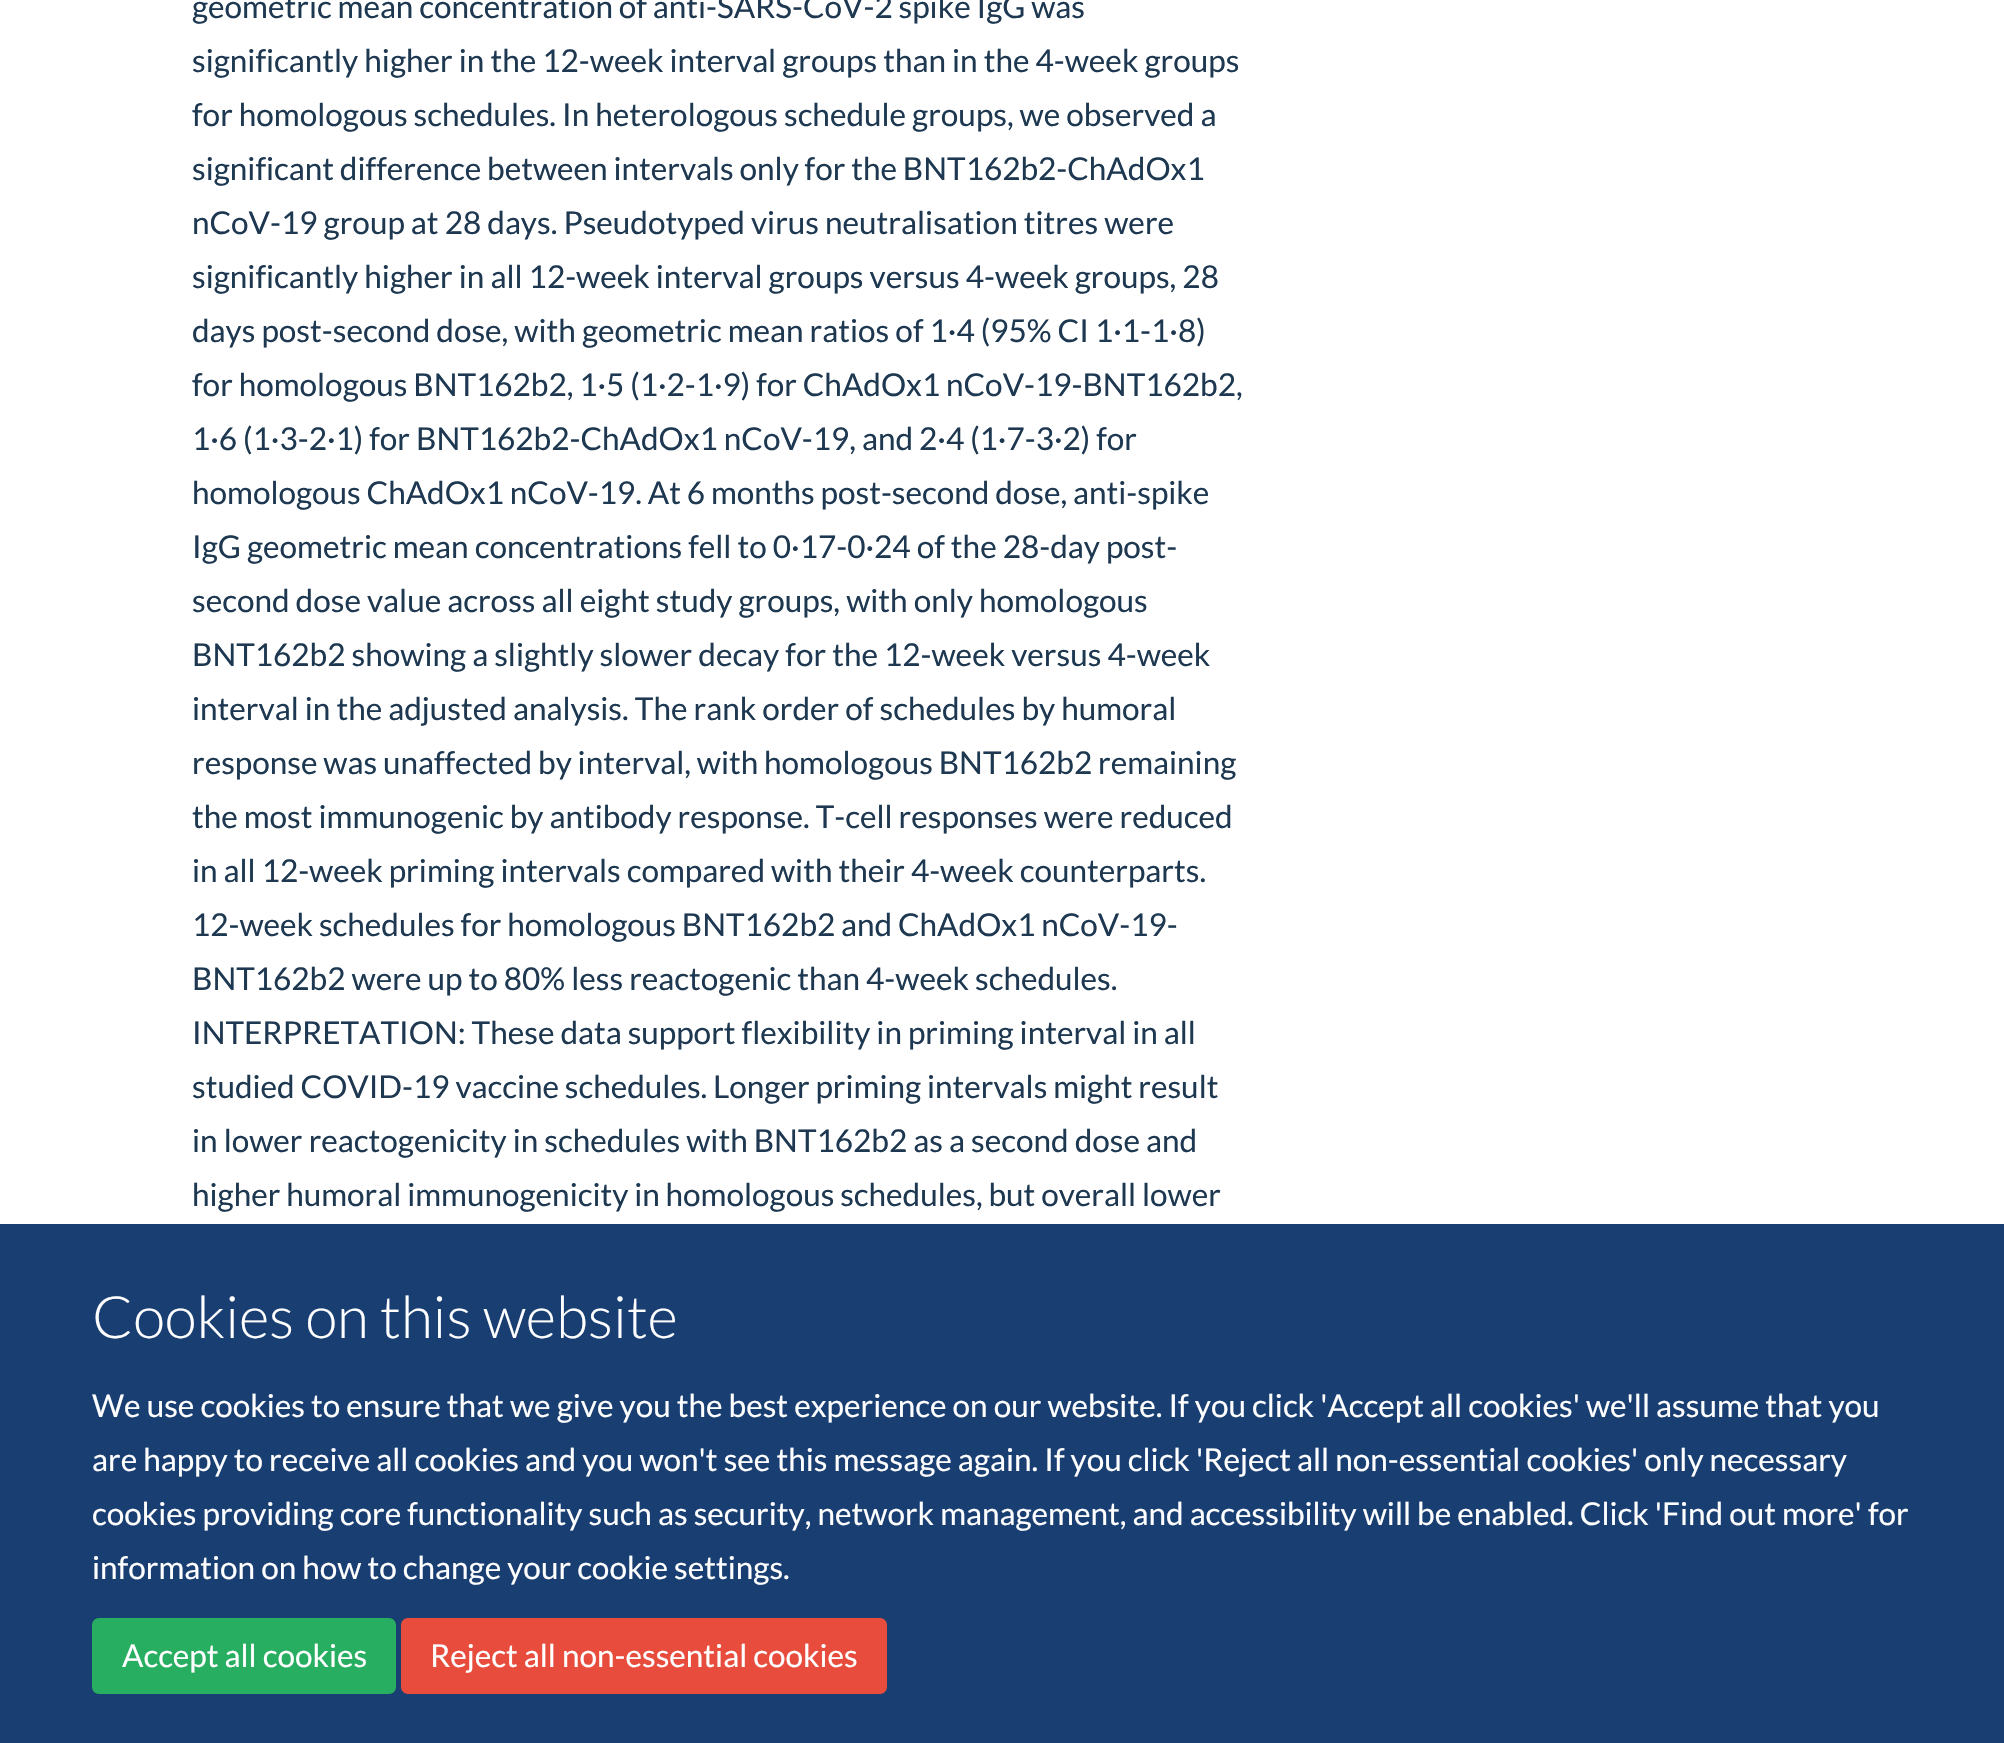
static SkFont makeFont(const char* family, int weight, float size, bool italic = false) {
  SkFontStyle style(weight, SkFontStyle::kNormal_Width,
    italic ? SkFontStyle::kItalic_Slant : SkFontStyle::kUpright_Slant);
  SkFont result(fontMgr->matchFamilyStyle(family, style), size);
  result.setSubpixel(true);
  return result;
}

static void text(SkCanvas* c, const char* s, float x, float y, const SkFont& font, SkColor color) {
  SkPaint ink(SkColor4f::FromColor(color));
  ink.setAntiAlias(true);
  c->drawString(s, x, y, font, ink);
}

static void spacedText(SkCanvas* c, const char* s, float x, float y, const SkFont& font, const SkPaint& ink, float letter, float word) {
  std::vector<SkGlyphID> glyphs(font.countText(s, strlen(s), SkTextEncoding::kUTF8));
  std::vector<float> xs(glyphs.size());
  font.textToGlyphs(s, strlen(s), SkTextEncoding::kUTF8, glyphs);
  font.getXPos(glyphs, xs, x);
  float extra = 0;
  for (size_t i = 0; i < glyphs.size(); i++) {
    xs[i] += extra;
    extra += letter + word * (glyphs[i] == font.unicharToGlyph(' '));
  }
  c->drawTextBlob(SkTextBlob::MakeFromPosHGlyphs(glyphs, xs, y, font), 0, 0, ink);
}

static void box(SkCanvas* c, float l, float t, float r, float b, SkColor color) {
  SkPaint ink(SkColor4f::FromColor(color));
  ink.setAntiAlias(true);
  c->drawRect(SkRect::MakeLTRB(l, t, r, b), ink);
}

void draw(SkCanvas* c) {
  SkPaint paint;
  paint.setAntiAlias(true);
  c->clear(0xffffffff);
  SkFont face1 = makeFont("Lato", 400, 31.5f);
  paint.setColor(0xff1d3850);
  spacedText(c, "geometric mean concentration of anti-SARS-CoV-2 spike IgG was", 192, 18, face1, paint, 0, -0.25f);
  text(c, "significantly higher in the 12-week interval groups than in the 4-week groups", 192, 72, face1, 0xff1d3850);
  spacedText(c, "for homologous schedules. In heterologous schedule groups, we observed a", 192, 126, face1, paint, 0, -0.1f);
  spacedText(c, "significant difference between intervals only for the BNT162b2-ChAdOx1", 192, 180, face1, paint, 0, -0.25f);
  text(c, "nCoV-19 group at 28 days. Pseudotyped virus neutralisation titres were", 192, 234, face1, 0xff1d3850);
  text(c, "significantly higher in all 12-week interval groups versus 4-week groups, 28", 192, 288, face1, 0xff1d3850);
  text(c, "days post-second dose, with geometric mean ratios of 1·4 (95% CI 1·1-1·8)", 192, 342, face1, 0xff1d3850);
  spacedText(c, "for homologous BNT162b2, 1·5 (1·2-1·9) for ChAdOx1 nCoV-19-BNT162b2,", 192, 396, face1, paint, 0, -0.25f);
  spacedText(c, "1·6 (1·3-2·1) for BNT162b2-ChAdOx1 nCoV-19, and 2·4 (1·7-3·2) for", 192, 450, face1, paint, 0, -0.1f);
  spacedText(c, "homologous ChAdOx1 nCoV-19. At 6 months post-second dose, anti-spike", 192, 504, face1, paint, 0, -0.25f);
  text(c, "IgG geometric mean concentrations fell to 0·17-0·24 of the 28-day post-", 192, 558, face1, 0xff1d3850);
  text(c, "second dose value across all eight study groups, with only homologous", 192, 612, face1, 0xff1d3850);
  text(c, "BNT162b2 showing a slightly slower decay for the 12-week versus 4-week", 192, 666, face1, 0xff1d3850);
  text(c, "interval in the adjusted analysis. The rank order of schedules by humoral", 192, 720, face1, 0xff1d3850);
  spacedText(c, "response was unaffected by interval, with homologous BNT162b2 remaining", 192, 774, face1, paint, 0, -0.25f);
  spacedText(c, "the most immunogenic by antibody response. T-cell responses were reduced", 192, 828, face1, paint, 0, -0.1f);
  spacedText(c, "in all 12-week priming intervals compared with their 4-week counterparts.", 192, 882, face1, paint, 0, -0.1f);
  spacedText(c, "12-week schedules for homologous BNT162b2 and ChAdOx1 nCoV-19-", 192, 936, face1, paint, 0, -0.25f);
  text(c, "BNT162b2 were up to 80% less reactogenic than 4-week schedules.", 192, 990, face1, 0xff1d3850);
  spacedText(c, "INTERPRETATION: These data support flexibility in priming interval in all", 192, 1044, face1, paint, 0, -0.1f);
  spacedText(c, "studied COVID-19 vaccine schedules. Longer priming intervals might result", 192, 1098, face1, paint, 0, -0.25f);
  text(c, "in lower reactogenicity in schedules with BNT162b2 as a second dose and", 192, 1152, face1, 0xff1d3850);
  spacedText(c, "higher humoral immunogenicity in homologous schedules, but overall lower", 192, 1206, face1, paint, 0, -0.25f);
  box(c, 0, 1224, 2004, 1743, 0xff193e72);
  SkFont face2 = makeFont("Lato", 300, 58.5f);
  text(c, "Cookies on this website", 92, 1338, face2, 0xffffffff);
  text(c, "We use cookies to ensure that we give you the best experience on our website. If you click 'Accept all cookies' we'll assume that you", 92, 1417, face1, 0xffffffff);
  text(c, "are happy to receive all cookies and you won't see this message again. If you click 'Reject all non-essential cookies' only necessary", 92, 1471, face1, 0xffffffff);
  text(c, "cookies providing core functionality such as security, network management, and accessibility will be enabled. Click 'Find out more' for", 92, 1525, face1, 0xffffffff);
  text(c, "information on how to change your cookie settings.", 92, 1579, face1, 0xffffffff);
  paint.setColor(0xff27ae60);
  c->drawRoundRect(SkRect::MakeLTRB(93, 1619, 395, 1693), 6, 6, paint);
  paint.setStyle(SkPaint::kStroke_Style);
  paint.setStrokeWidth(2);
  c->drawRoundRect(SkRect::MakeLTRB(93, 1619, 395, 1693), 6, 6, paint);
  text(c, "Accept all cookies", 122, 1667, face1, 0xffffffff);
  paint.setStyle(SkPaint::kFill_Style);
  paint.setColor(0xffe74c3c);
  c->drawRoundRect(SkRect::MakeLTRB(402, 1619, 886, 1693), 6, 6, paint);
  paint.setStyle(SkPaint::kStroke_Style);
  c->drawRoundRect(SkRect::MakeLTRB(402, 1619, 886, 1693), 6, 6, paint);
  text(c, "Reject all non-essential cookies", 430, 1667, face1, 0xffffffff);
}
